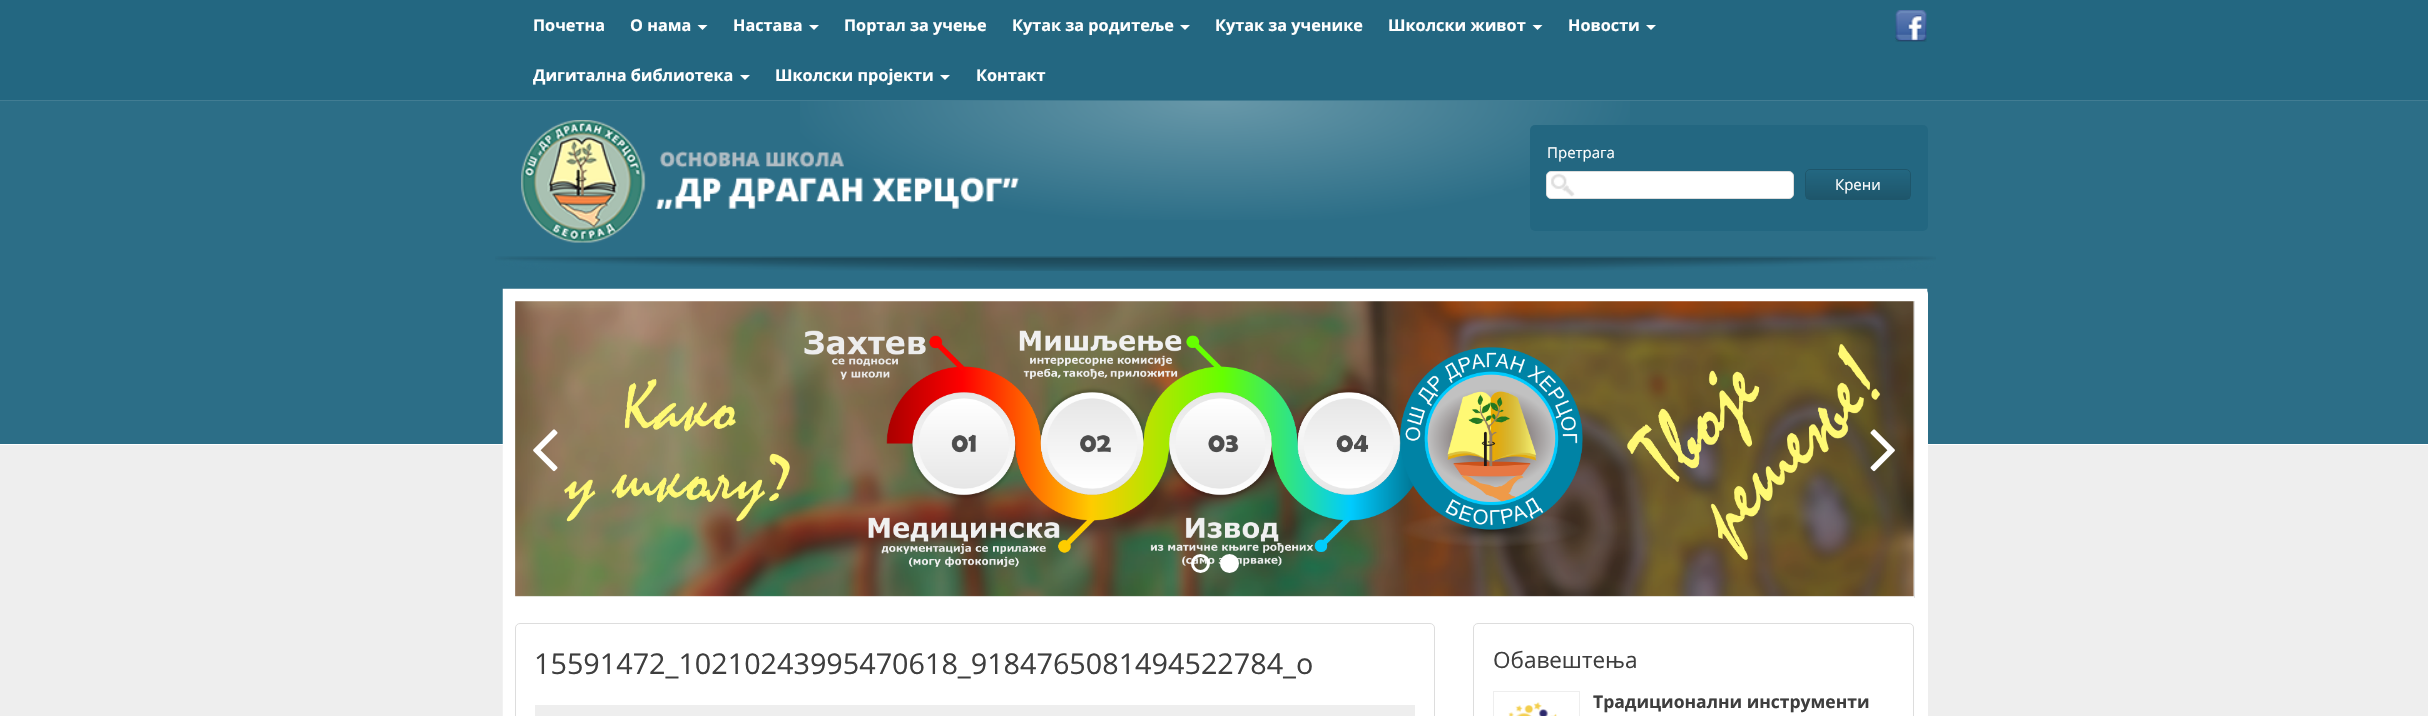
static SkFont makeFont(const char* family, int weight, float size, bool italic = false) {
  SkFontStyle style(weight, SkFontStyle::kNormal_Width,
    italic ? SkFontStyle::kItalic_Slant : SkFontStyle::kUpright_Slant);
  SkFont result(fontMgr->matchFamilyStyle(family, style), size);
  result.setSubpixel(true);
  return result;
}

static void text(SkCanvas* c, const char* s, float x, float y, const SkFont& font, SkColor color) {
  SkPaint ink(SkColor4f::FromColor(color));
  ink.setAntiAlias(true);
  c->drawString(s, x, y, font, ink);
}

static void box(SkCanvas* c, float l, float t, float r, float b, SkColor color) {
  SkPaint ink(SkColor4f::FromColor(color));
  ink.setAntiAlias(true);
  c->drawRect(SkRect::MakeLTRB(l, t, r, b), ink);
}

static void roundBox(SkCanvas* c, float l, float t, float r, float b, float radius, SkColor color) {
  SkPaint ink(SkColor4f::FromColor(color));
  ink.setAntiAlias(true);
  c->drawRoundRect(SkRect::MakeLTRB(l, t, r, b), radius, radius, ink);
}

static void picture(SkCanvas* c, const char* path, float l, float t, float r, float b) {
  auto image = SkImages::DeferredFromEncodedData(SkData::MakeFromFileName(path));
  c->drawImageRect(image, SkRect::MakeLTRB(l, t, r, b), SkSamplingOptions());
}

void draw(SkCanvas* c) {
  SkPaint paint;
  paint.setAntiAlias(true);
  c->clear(0xffeeeeee);
  box(c, 0, 0, 2428, 100, 0xff236781);
  box(c, 0, 100, 2428, 101, 0xff427d93);
  SkFont face1 = makeFont("Open Sans", 700, 16.25f);
  text(c, "Почетна", 533, 31, face1, 0xffffffff);
  text(c, "О нама", 630, 31, face1, 0xffffffff);
  paint.setColor(0xffffffff);
  c->drawPath(SkPathBuilder().moveTo(697.5f, 25).lineTo(707.5f, 25).lineTo(702.5f, 30).close().detach(), paint);
  text(c, "Настава", 733, 31, face1, 0xffffffff);
  c->drawPath(SkPathBuilder().moveTo(809, 25).lineTo(819, 25).lineTo(814, 30).close().detach(), paint);
  text(c, "Портал за учење", 844, 31, face1, 0xffffffff);
  text(c, "Кутак за родитеље", 1012, 31, face1, 0xffffffff);
  c->drawPath(SkPathBuilder().moveTo(1180, 25).lineTo(1190, 25).lineTo(1185, 30).close().detach(), paint);
  text(c, "Кутак за ученике", 1215, 31, face1, 0xffffffff);
  text(c, "Школски живот", 1388, 31, face1, 0xffffffff);
  c->drawPath(SkPathBuilder().moveTo(1532.5f, 25).lineTo(1542.5f, 25).lineTo(1537.5f, 30).close().detach(), paint);
  text(c, "Новости", 1568, 31, face1, 0xffffffff);
  c->drawPath(SkPathBuilder().moveTo(1646, 25).lineTo(1656, 25).lineTo(1651, 30).close().detach(), paint);
  text(c, "Дигитална библиотека", 533, 81, face1, 0xffffffff);
  c->drawPath(SkPathBuilder().moveTo(740, 75).lineTo(750, 75).lineTo(745, 80).close().detach(), paint);
  text(c, "Школски пројекти", 775, 81, face1, 0xffffffff);
  c->drawPath(SkPathBuilder().moveTo(940, 75).lineTo(950, 75).lineTo(945, 80).close().detach(), paint);
  text(c, "Контакт", 976, 81, face1, 0xffffffff);
  picture(c, "img_01.png", 1895, 10, 1927, 42);
  box(c, 0, 101, 2428, 444, 0xff2c6e87);
  box(c, 0, 444, 2428, 445, 0xffffffff);
  {
    const SkColor colors[] = {0xff6898a9, 0xff2c6e87};
    const float stops[] = {0, 0.7f};
    SkMatrix m = SkMatrix::Translate(1215, 101).preScale(619, 177);
    paint.setShader(SkGradientShader::MakeRadial({0, 0}, 1, colors, stops, 2, SkTileMode::kClamp, 0, &m));
    paint.setAlpha(255);
  }
  c->drawRect(SkRect::MakeLTRB(800, 101, 1630, 220), paint);
  picture(c, "img_02.png", 521, 120, 1019, 243);
  roundBox(c, 1530, 125, 1928, 231, 5, 0xff236781);
  SkFont face2 = makeFont("Open Sans", 400, 15);
  text(c, "Претрага", 1547, 158, face2, 0xffffffff);
  paint.setShader(nullptr);
  paint.setColor(0xffffffff);
  c->drawRoundRect(SkRect::MakeLTRB(1546.5f, 171.5f, 1793.5f, 198.5f), 4.5f, 4.5f, paint);
  paint.setStyle(SkPaint::kStroke_Style);
  paint.setStrokeWidth(1);
  paint.setColor(0xffdddddd);
  c->drawRoundRect(SkRect::MakeLTRB(1546.5f, 171.5f, 1793.5f, 198.5f), 4.5f, 4.5f, paint);
  picture(c, "img_03.png", 1551, 173, 1575, 197);
  c->save();
  c->clipPath(SkPathBuilder().moveTo(1810, 169).lineTo(1906, 169).cubicTo(1909, 169, 1911, 171, 1911, 174).lineTo(1911, 195).cubicTo(1911, 198, 1909, 200, 1906, 200).lineTo(1810, 200).cubicTo(1807, 200, 1805, 198, 1805, 195).lineTo(1805, 174).cubicTo(1805, 171, 1807, 169, 1810, 169).close().detach(), true);
  paint.setStyle(SkPaint::kFill_Style);
  {
    const SkColor colors[] = {0xff236781, 0xff1e566b};
    const float stops[] = {0, 1};
    const SkPoint ends[] = {{1858, 170}, {1858, 199}};
    paint.setShader(SkGradientShader::MakeLinear(ends, colors, stops, 2, SkTileMode::kClamp));
    paint.setAlpha(255);
  }
  c->drawRect(SkRect::MakeLTRB(1806, 170, 1910, 199), paint);
  c->restore();
  paint.setStyle(SkPaint::kStroke_Style);
  paint.setShader(nullptr);
  paint.setColor(0xff1e566b);
  c->drawRoundRect(SkRect::MakeLTRB(1805.5f, 169.5f, 1910.5f, 199.5f), 4.5f, 4.5f, paint);
  text(c, "Крени", 1835, 190, face2, 0xffffffff);
  picture(c, "img_04.png", 495, 256, 1936, 271);
  roundBox(c, 503, 289, 1928, 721, 5, 0xffffffff);
  paint.setStrokeWidth(12.5f);
  paint.setColor(0xffffffff);
  c->drawPath(SkPathBuilder().moveTo(509, 295).lineTo(1921, 295).lineTo(1921, 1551).lineTo(509, 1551).close().detach(), paint);
  picture(c, "img_05.png", 515, 301, 1914, 597);
  picture(c, "img_06.png", 1914, 301, 1915, 598);
  picture(c, "img_07.png", 533, 429, 558, 472);
  picture(c, "img_08.png", 1870, 429, 1895, 472);
  paint.setStrokeWidth(3);
  c->drawCircle(1200.5f, 563.5f, 8, paint);
  paint.setStyle(SkPaint::kFill_Style);
  c->drawCircle(1229.5f, 563.5f, 8, paint);
  paint.setStyle(SkPaint::kStroke_Style);
  c->drawCircle(1229.5f, 563.5f, 8, paint);
  paint.setStrokeWidth(1);
  paint.setColor(0xffdddddd);
  c->drawRoundRect(SkRect::MakeLTRB(515.5f, 623.5f, 1434.5f, 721.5f), 4.5f, 4.5f, paint);
  SkFont face3 = makeFont("Open Sans", 400, 28.75f);
  text(c, "15591472_10210243995470618_9184765081494522784_o", 534, 674, face3, 0xff3e3e3e);
  paint.setStrokeWidth(13);
  paint.setColor(0xffeeeeee);
  c->drawRect(SkRect::MakeLTRB(541.5f, 711.5f, 1408.5f, 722.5f), paint);
  paint.setStrokeWidth(1);
  paint.setColor(0xffdddddd);
  c->drawRoundRect(SkRect::MakeLTRB(1473.5f, 623.5f, 1913.5f, 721.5f), 4.5f, 4.5f, paint);
  SkFont face4 = makeFont("Open Sans", 400, 22.5f);
  text(c, "Обавештења", 1493, 668, face4, 0xff3e3e3e);
  paint.setColor(0xffeeeeee);
  c->drawRect(SkRect::MakeLTRB(1493.5f, 691.5f, 1579.5f, 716.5f), paint);
  picture(c, "img_09.png", 1508, 702, 1557, 716);
  SkFont face5 = makeFont("Open Sans", 700, 17.5f);
  text(c, "Традиционални инструменти", 1593, 708, face5, 0xff3e3e3e);
}
